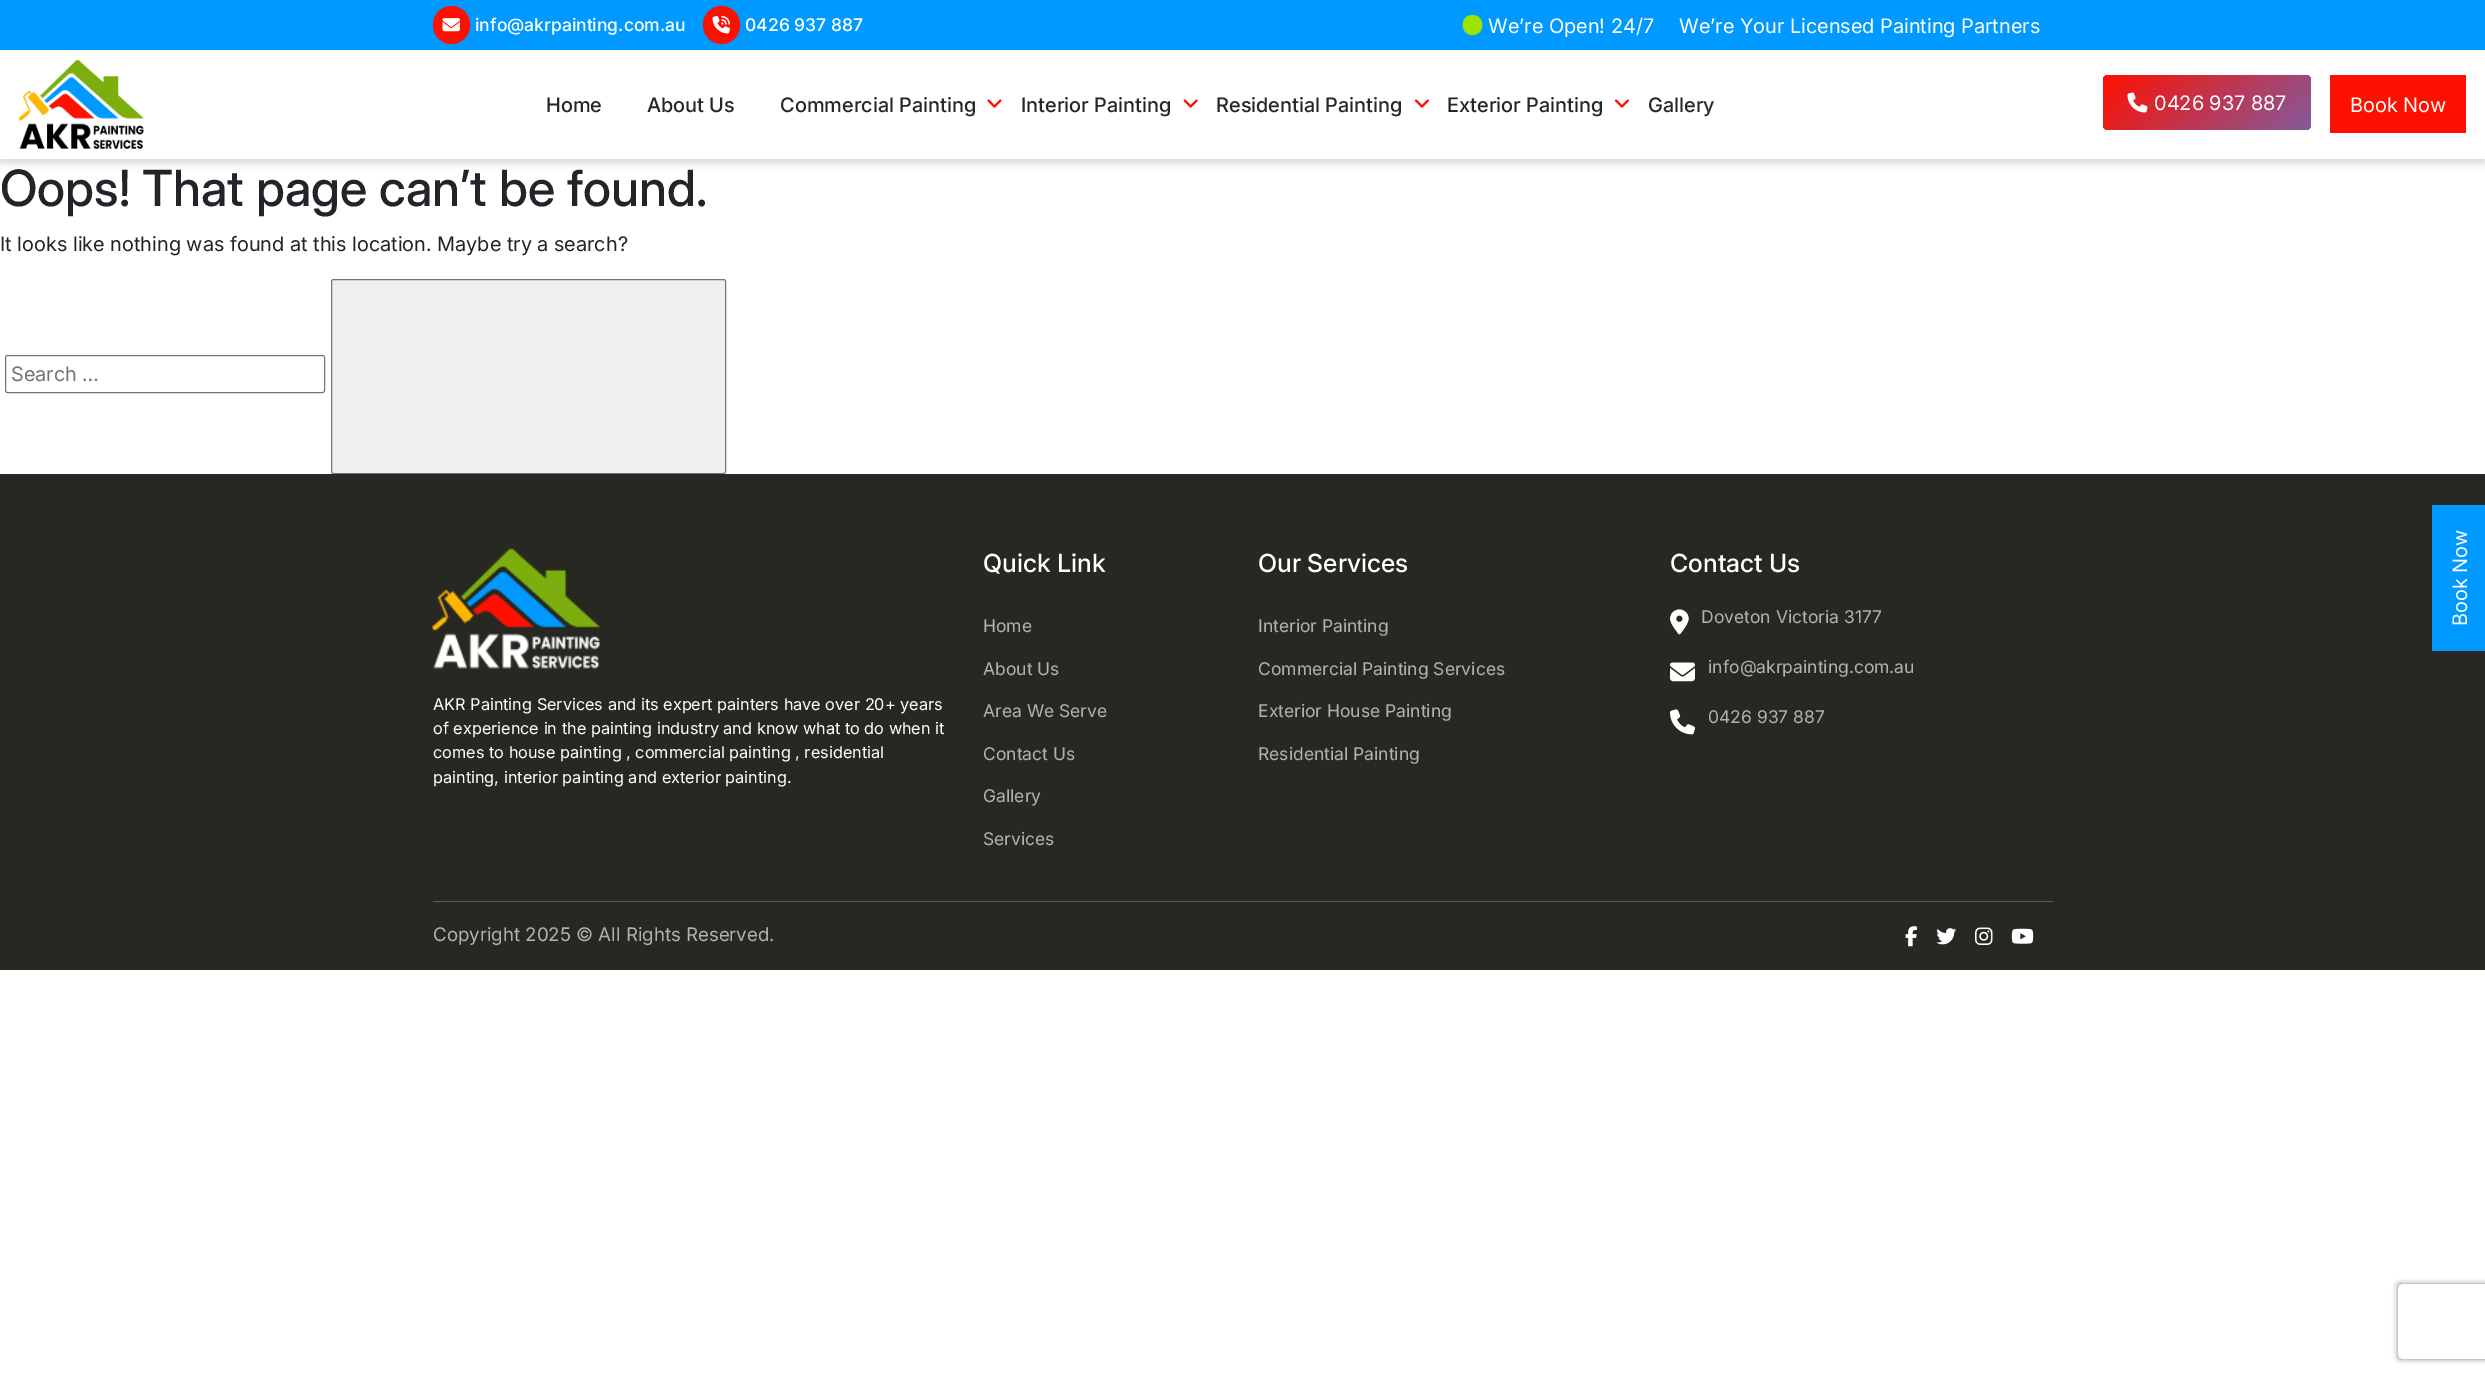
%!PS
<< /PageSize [2485 1376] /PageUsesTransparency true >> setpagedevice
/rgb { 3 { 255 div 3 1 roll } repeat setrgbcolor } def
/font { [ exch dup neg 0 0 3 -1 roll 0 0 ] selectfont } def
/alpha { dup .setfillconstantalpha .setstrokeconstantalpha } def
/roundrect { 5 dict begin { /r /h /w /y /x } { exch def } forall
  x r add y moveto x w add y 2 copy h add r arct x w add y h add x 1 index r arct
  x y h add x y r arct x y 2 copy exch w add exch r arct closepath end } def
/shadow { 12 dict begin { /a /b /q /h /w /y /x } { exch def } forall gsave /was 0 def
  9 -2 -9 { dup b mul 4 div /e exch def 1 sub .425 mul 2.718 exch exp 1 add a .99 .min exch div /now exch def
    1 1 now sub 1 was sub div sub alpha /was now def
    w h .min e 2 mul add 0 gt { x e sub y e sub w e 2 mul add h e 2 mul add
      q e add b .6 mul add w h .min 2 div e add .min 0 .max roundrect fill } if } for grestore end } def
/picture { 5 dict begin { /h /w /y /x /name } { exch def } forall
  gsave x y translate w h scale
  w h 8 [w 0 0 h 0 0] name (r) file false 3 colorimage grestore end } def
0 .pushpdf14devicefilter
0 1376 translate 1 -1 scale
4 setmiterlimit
255 255 255 rgb
0 0 2485 1376 rectfill
gsave
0 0 moveto 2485 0 lineto 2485 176 lineto 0 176 lineto closepath 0 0 moveto 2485 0 lineto 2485 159 lineto 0 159 lineto closepath eoclip newpath
0 0 0 rgb
0 4 2485 159 0 4 0.16 shadow
grestore
0 153 255 rgb
0 0 2485 50 rectfill
254 16 1 rgb
433 6 37 38 18.5 roundrect fill
(img/1.rgb) 442 18 18 14 picture
703 6 37 38 18.5 roundrect fill
(img/2.rgb) 712 15 18 19 picture
156 227 0 rgb
1472.5 35 moveto 1485.5 35 1485.5 15 1472.5 15 curveto 1459.5 15 1459.5 35 1472.5 35 curveto closepath fill
(img/3.rgb) 18 60 126 89 picture
(img/4.rgb) 987 99 15 9 picture
(img/5.rgb) 1183 99 15 9 picture
(img/6.rgb) 1414 99 15 9 picture
(img/6.rgb) 1614 99 15 9 picture
gsave 2103 75 208 55 6 roundrect clip newpath
<< /ShadingType 2 /ColorSpace /DeviceRGB /Coords [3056 429 2402 -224] /Extend [true true] /Function << /FunctionType 3 /Domain [0 1] /Functions [<< /FunctionType 2 /Domain [0 1] /C0 [1 0.714 0] /C1 [0.486 0.682 0.051] /N 1 >> << /FunctionType 2 /Domain [0 1] /C0 [0.486 0.682 0.051] /C1 [0.2 0.541 1] /N 1 >> << /FunctionType 2 /Domain [0 1] /C0 [0.2 0.541 1] /C1 [1 0.063 0.004] /N 1 >>] /Bounds [0.33 0.67] /Encode [0 1 0 1 0 1] >> >> shfill grestore
(img/7.rgb) 2127 92 21 21 picture
254 16 1 rgb
2330 75 136 58 rectfill
118 118 118 rgb
5.5 355.5 319 37 2 roundrect stroke
239 239 239 rgb
331.5 279.5 394 194 2 roundrect gsave fill grestore
118 118 118 rgb
stroke
39 40 34 rgb
0 474 2485 496 rectfill
(img/8.rgb) 1670 609 19 26 picture
(img/9.rgb) 1670 662 25 20 picture
(img/10.rgb) 1670 709 25 26 picture
(img/11.rgb) 432 548 168 121 picture
90 90 90 rgb
433 901 1620 1 rectfill
(img/12.rgb) 1905 926 12 21 picture
(img/13.rgb) 1936 928 21 17 picture
(img/14.rgb) 1975 927 18 18 picture
(img/15.rgb) 2011 928 23 16 picture
0 153 255 rgb
2432 505 53 146 rectfill
gsave
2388 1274 moveto 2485 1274 lineto 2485 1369 lineto 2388 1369 lineto closepath 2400.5 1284 moveto 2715.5 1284 lineto 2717 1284 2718 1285 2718 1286.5 curveto 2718 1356.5 lineto 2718 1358 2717 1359 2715.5 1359 curveto 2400.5 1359 lineto 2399 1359 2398 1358 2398 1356.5 curveto 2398 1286.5 lineto 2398 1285 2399 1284 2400.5 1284 curveto closepath eoclip newpath
128 128 128 rgb
2398 1284 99 75 2.5 3 1 shadow
grestore
/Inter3-Medium 17.5 font
255 255 255 rgb
475 31 moveto (info@akrpainting.com.au) show
745 31 moveto (0426 937 887) show
/Inter-Regular 20 font
1488 33 moveto (We’re Open! 24/7) show
1679 33 moveto (We’re Your Licensed Painting Partners) show
/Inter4-Medium 20 font
39 40 34 rgb
[
  [(Home) 546 112]
  [(About Us) 647 112]
  [(Commercial Painting) 780 112]
  [(Interior Painting) 1021 112]
  [(Residential Painting) 1216 112]
  [(Exterior Painting) 1447 112]
  [(Gallery) 1648 112]
] { aload pop moveto show } forall
/Inter-Regular 20 font
255 255 255 rgb
2154 110 moveto (0426 937 887) show
2350 112 moveto (Book Now) show
/Inter-Medium 50 font
33 37 41 rgb
0 206 moveto (Oops! That page can’t be found.) show
/Inter-Regular 20 font
0 251 moveto (It looks like nothing was found at this location. Maybe try a search?) show
117 117 117 rgb
11 381 moveto (Search …) show
/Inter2-Medium 25 font
255 255 255 rgb
983 572 moveto (Quick Link) show
/Inter2-Regular 17.5 font
177 177 177 rgb
[
  [(Home) 983 632]
  [(About Us) 983 675]
  [(Area We Serve) 983 717]
  [(Contact Us) 983 760]
  [(Gallery) 983 802]
  [(Services) 983 845]
] { aload pop moveto show } forall
/Inter2-Medium 25 font
255 255 255 rgb
1258 572 moveto (Our Services) show
/Inter2-Regular 17.5 font
177 177 177 rgb
[
  [(Interior Painting) 1258 632]
  [(Commercial Painting Services) 1258 675]
  [(Exterior House Painting) 1258 717]
  [(Residential Painting) 1258 760]
] { aload pop moveto show } forall
/Inter2-Medium 25 font
255 255 255 rgb
1670 572 moveto (Contact Us) show
/Inter2-Regular 17.5 font
177 177 177 rgb
[
  [(Doveton Victoria 3177) 1701 623]
  [(info@akrpainting.com.au) 1708 673]
  [(0426 937 887) 1708 723]
] { aload pop moveto show } forall
/Inter2-Regular 16.25 font
255 255 255 rgb
[
  [(AKR Painting Services and its expert painters have over 20+ years) 433 710]
  [(of experience in the painting industry and know what to do when it) 433 734]
  [(comes to house painting , commercial painting , residential) 433 758]
  [(painting, interior painting and exterior painting.) 433 783]
] { aload pop moveto show } forall
/Inter3-Regular 18.75 font
177 177 177 rgb
433 941 moveto (Copyright 2025 © All Rights Reserved.) show
/Inter-Regular 20 font
255 255 255 rgb
gsave 2467 626 translate -90 rotate 0 0 moveto (Book Now) show grestore
.poppdf14devicefilter showpage
